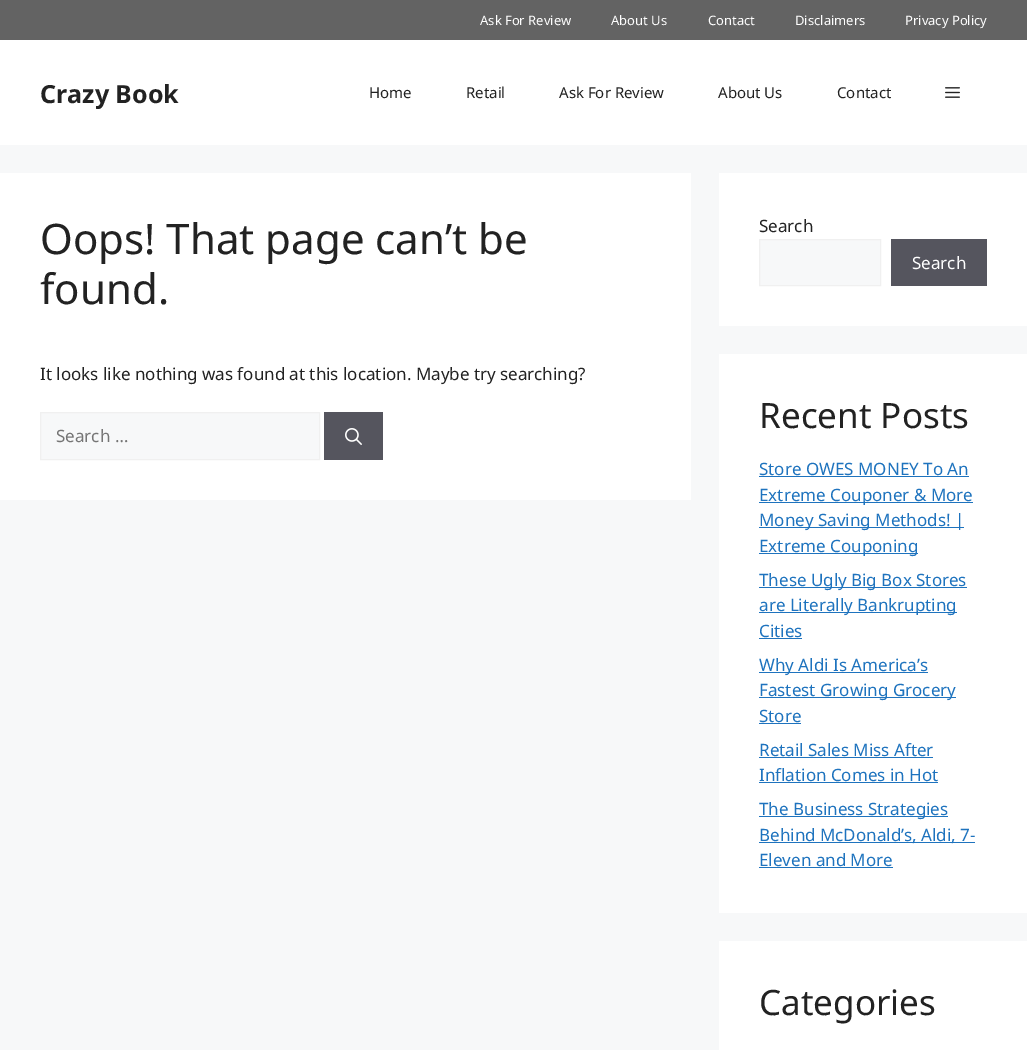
%!PS
<< /PageSize [1027 1050] >> setpagedevice
/rgb { 3 { 255 div 3 1 roll } repeat setrgbcolor } def
/font { [ exch dup neg 0 0 3 -1 roll 0 0 ] selectfont } def
/picture { 5 dict begin { /h /w /y /x /name } { exch def } forall
  gsave x y translate w h scale
  w h 8 [w 0 0 h 0 0] name (r) file false 3 colorimage grestore end } def
0 1050 translate 1 -1 scale
4 setmiterlimit
247 248 249 rgb
0 0 1027 1050 rectfill
99 99 99 rgb
0 0 1027 40 rectfill
255 255 255 rgb
0 40 1027 105 rectfill
(img/1.rgb) 945 87 15 11 picture
0 173 691 327 rectfill
247 248 249 rgb
40.5 412.5 moveto 319.5 412.5 lineto 319.5 459.5 lineto 40.5 459.5 lineto closepath gsave fill grestore
240 240 240 rgb
stroke
85 85 94 rgb
324 412 59 48 rectfill
(img/2.rgb) 345 428 17 17 picture
255 255 255 rgb
719 173 308 153 rectfill
247 248 249 rgb
759.5 239.5 moveto 880.5 239.5 lineto 880.5 285.5 lineto 759.5 285.5 lineto closepath gsave fill grestore
240 240 240 rgb
stroke
[
  [891 239 96 47 85 85 94]
  [719 354 308 559 255 255 255]
  [759 476 210 1 30 115 190]
  [759 502 214 1 30 115 190]
  [759 527 205 1 30 115 190]
  [759 553 159 1 30 115 190]
  [759 587 208 1 30 115 190]
  [759 612 198 1 30 115 190]
  [759 638 43 1 30 115 190]
  [759 672 169 1 30 115 190]
  [759 697 197 1 30 115 190]
  [759 723 42 1 30 115 190]
  [759 757 174 1 30 115 190]
  [759 782 179 1 30 115 190]
  [759 816 189 1 30 115 190]
  [759 842 216 1 30 115 190]
  [759 867 134 1 30 115 190]
  [719 941 308 109 255 255 255]
] { aload pop rgb rectfill } forall
/NotoSans-Regular 13 font
[
  [(Ask For Review) 480 25]
  [(About Us) 611 25]
  [(Contact) 708 25]
  [(Disclaimers) 795 25]
  [(Privacy Policy) 905 25]
] { aload pop moveto show } forall
/NotoSans-Bold 25 font
34 34 34 rgb
40 103 moveto (Crazy Book) show
/NotoSans-Regular 15 font
[
  [(Home) 369 98]
  [(Retail) 466 98]
  [(Ask For Review) 559 98]
  [(About Us) 718 98]
  [(Contact) 837 98]
] { aload pop moveto show } forall
/NotoSans-Regular 42 font
40 254 moveto (Oops! That page can’t be) show
40 304 moveto (found.) show
/NotoSans-Regular 17 font
40 380 moveto (It looks like nothing was found at this location. Maybe try searching?) show
117 117 117 rgb
56 442 moveto (Search …) show
34 34 34 rgb
759 232 moveto (Search) show
255 255 255 rgb
912 269 moveto (Search) show
/NotoSans-Regular 35 font
34 34 34 rgb
759 428 moveto (Recent Posts) show
/NotoSans-Regular 17 font
30 115 190 rgb
[
  [(Store OWES MONEY To An) 759 475]
  [(Extreme Couponer & More) 759 501]
  [(Money Saving Methods! |) 759 526]
  [(Extreme Couponing) 759 552]
  [(These Ugly Big Box Stores) 759 586]
  [(are Literally Bankrupting) 759 611]
  [(Cities) 759 637]
  [(Why Aldi Is America’s) 759 671]
  [(Fastest Growing Grocery) 759 696]
  [(Store) 759 722]
  [(Retail Sales Miss After) 759 756]
  [(Inflation Comes in Hot) 759 781]
  [(The Business Strategies) 759 815]
  [(Behind McDonald’s, Aldi, 7-) 759 841]
  [(Eleven and More) 759 866]
] { aload pop moveto show } forall
/NotoSans-Regular 35 font
34 34 34 rgb
759 1015 moveto (Categories) show
showpage
